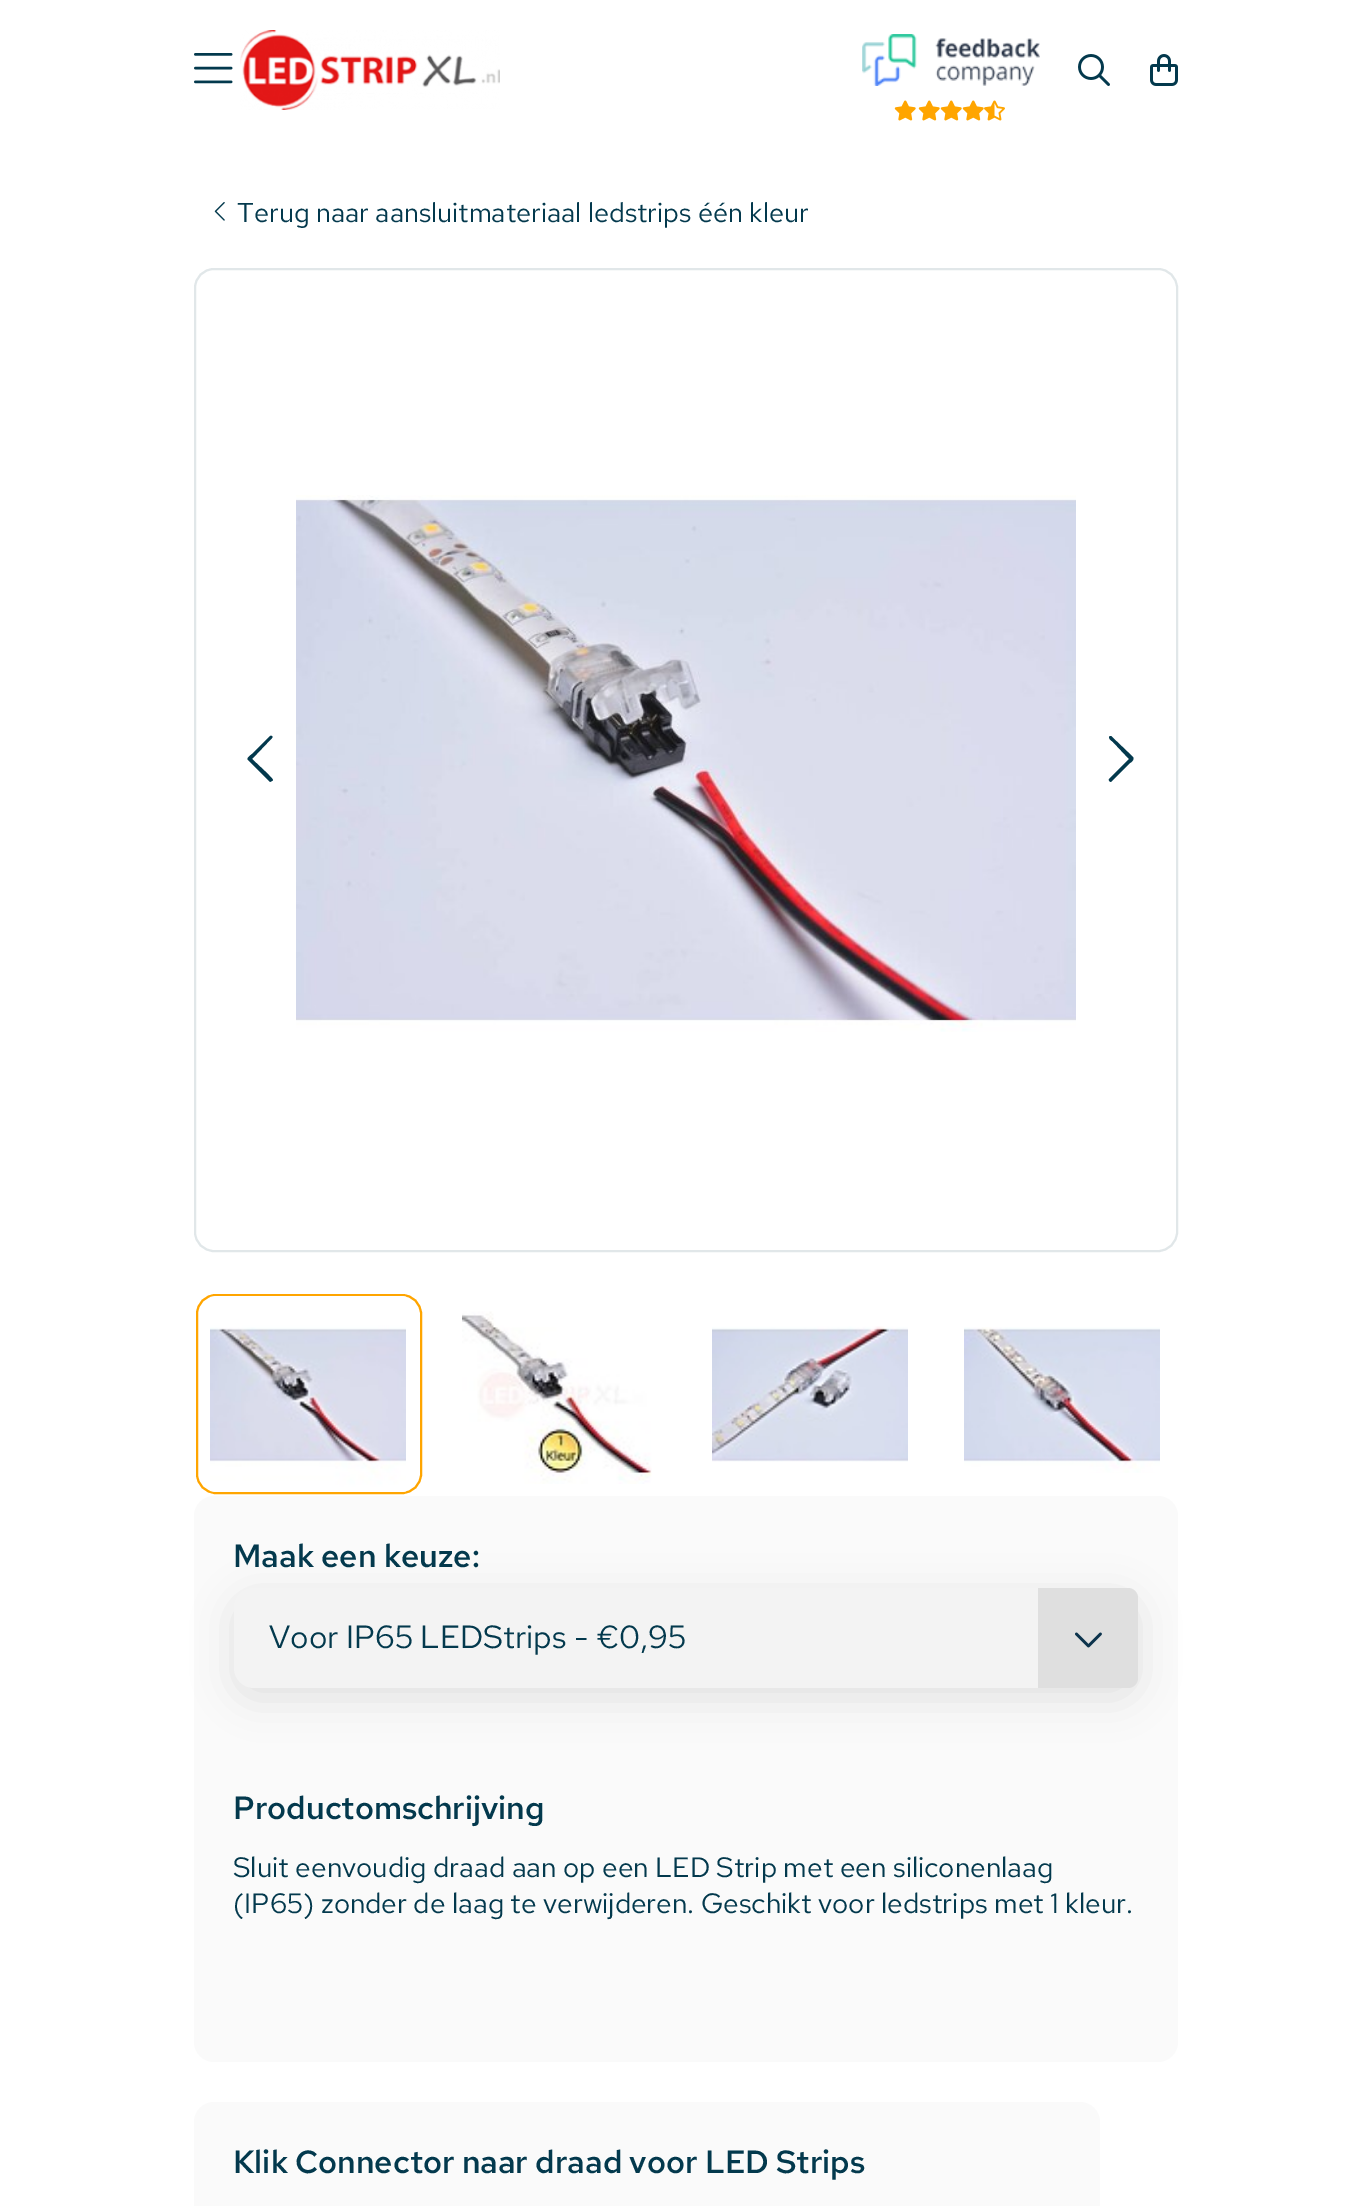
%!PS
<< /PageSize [1369 2206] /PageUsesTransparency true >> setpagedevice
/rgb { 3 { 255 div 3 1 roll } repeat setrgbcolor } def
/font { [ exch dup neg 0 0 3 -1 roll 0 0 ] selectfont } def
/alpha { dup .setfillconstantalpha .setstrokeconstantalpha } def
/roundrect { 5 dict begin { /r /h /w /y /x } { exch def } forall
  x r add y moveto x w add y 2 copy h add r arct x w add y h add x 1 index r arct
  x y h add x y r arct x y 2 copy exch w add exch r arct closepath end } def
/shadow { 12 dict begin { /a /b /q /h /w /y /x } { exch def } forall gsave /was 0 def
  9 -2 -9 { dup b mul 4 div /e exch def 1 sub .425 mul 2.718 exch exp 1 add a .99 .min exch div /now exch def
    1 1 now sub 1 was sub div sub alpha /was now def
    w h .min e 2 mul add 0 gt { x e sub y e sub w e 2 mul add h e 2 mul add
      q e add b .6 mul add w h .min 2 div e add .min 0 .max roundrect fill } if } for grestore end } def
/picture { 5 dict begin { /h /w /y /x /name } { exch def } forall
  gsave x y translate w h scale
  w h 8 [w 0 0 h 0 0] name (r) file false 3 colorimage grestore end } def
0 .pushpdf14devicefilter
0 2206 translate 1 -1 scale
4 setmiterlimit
255 255 255 rgb
0 0 1369 2206 rectfill
(img/1.rgb) 194 53 39 31 picture
(img/2.rgb) 240 30 260 80 picture
(img/3.rgb) 862 34 178 52 picture
(img/4.rgb) 894 100 22 21 picture
(img/4.rgb) 918 100 22 21 picture
(img/4.rgb) 940 100 22 21 picture
(img/4.rgb) 962 100 22 21 picture
(img/5.rgb) 984 100 21 21 picture
(img/6.rgb) 1078 54 32 32 picture
(img/7.rgb) 1150 54 28 32 picture
(img/8.rgb) 214 202 11 19 picture
225 231 233 rgb
2 setlinewidth
195 269 982 982 19 roundrect stroke
3 57 77 rgb
248 760 moveto 246 758 251 755 252 754 curveto 270 736 lineto 272 735 273 737 272 738 curveto 252 759 lineto 269 775 lineto 269 776 275 780 272 781 curveto 270 782 lineto closepath fill
(img/9.rgb) 296 495 780 537 picture
1133 757 moveto 1135 760 1130 763 1130 763 curveto 1111 782 lineto 1110 782 1108 780 1109 779 curveto 1129 759 lineto 1113 742 lineto 1112 741 1107 738 1110 736 curveto 1111 736 lineto closepath fill
255 165 0 rgb
197 1295 224 198 19 roundrect stroke
(img/10.rgb) 210 1296 196 196 picture
(img/11.rgb) 462 1311 190 173 picture
(img/12.rgb) 712 1326 196 136 picture
(img/13.rgb) 964 1327 196 146 picture
250 250 250 rgb
194 1496 984 566 20 roundrect fill
0 0 0 rgb
234 1598 904 100 20 20 0.1 shadow
243 243 243 rgb
234 1588 904 100 20 roundrect fill
223 223 223 rgb
1038 1588 moveto 1128 1588 lineto 1133.5 1588 1138 1592.5 1138 1598 curveto 1138 1678 lineto 1138 1683.5 1133.5 1688 1128 1688 curveto 1038 1688 lineto closepath fill
(img/14.rgb) 1075 1632 27 16 picture
250 250 250 rgb
194 2102 906 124 20 roundrect fill
/RedHatText-Regular 27.2 font
3 57 77 rgb
237 222 moveto (Terug naar aansluitmateriaal ledstrips één kleur) show
/RedHatText-SemiBold 32 font
233 1567 moveto (Maak een keuze:) show
/RedHatText-Regular 32 font
269 1648 moveto (Voor IP65 LEDStrips - €0,95) show
/RedHatText-SemiBold 32 font
233 1819 moveto (Productomschrijving) show
/RedHatText-Regular 28 font
233 1877 moveto (Sluit eenvoudig draad aan op een LED Strip met een siliconenlaag) show
233 1913 moveto (\(IP65\) zonder de laag te verwijderen. Geschikt voor ledstrips met 1 kleur.) show
/RedHatText-SemiBold 32 font
233 2173 moveto (Klik Connector naar draad voor LED Strips) show
.poppdf14devicefilter showpage
